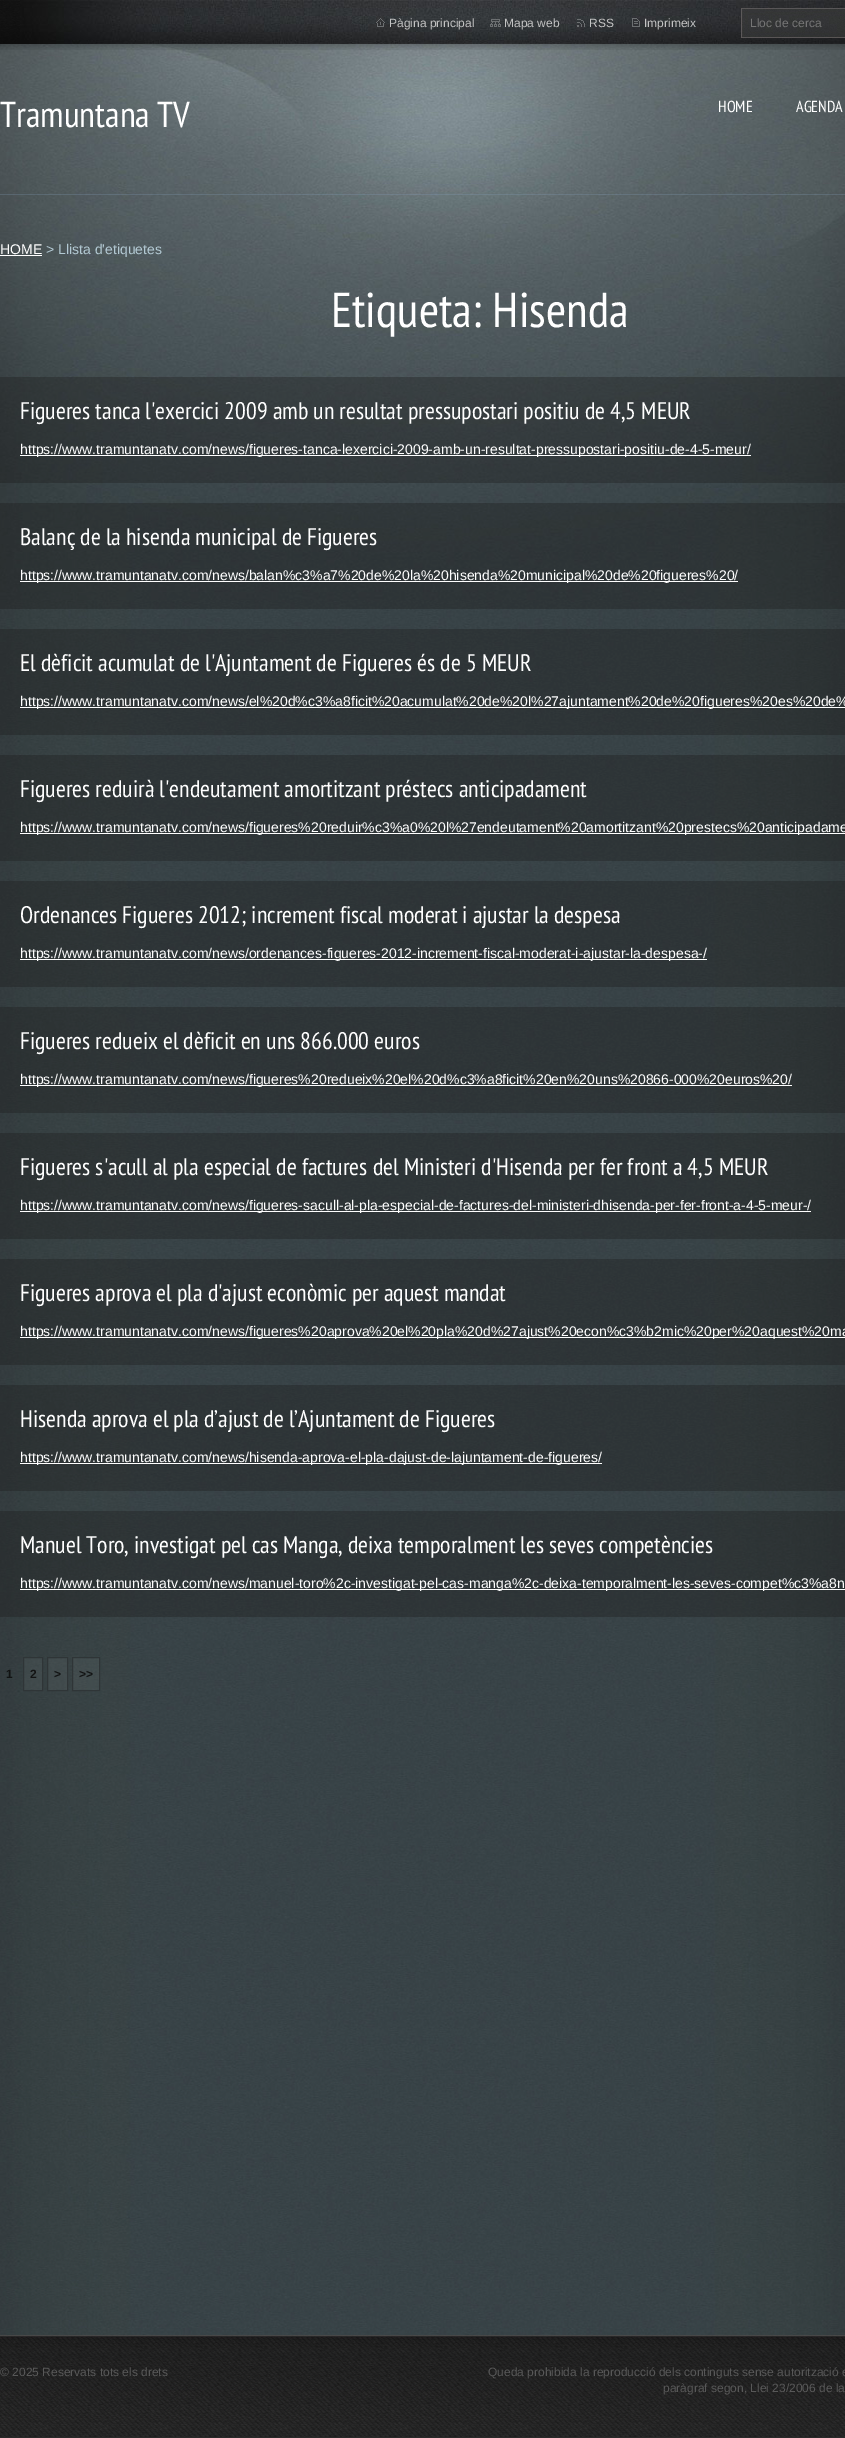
%!PS
<< /PageSize [845 2438] /PageUsesTransparency true >> setpagedevice
/rgb { 3 { 255 div 3 1 roll } repeat setrgbcolor } def
/font { [ exch dup neg 0 0 3 -1 roll 0 0 ] selectfont } def
/alpha { dup .setfillconstantalpha .setstrokeconstantalpha } def
/picture { 5 dict begin { /h /w /y /x /name } { exch def } forall
  gsave x y translate w h scale
  w h 8 [w 0 0 h 0 0] name (r) file false 3 colorimage grestore end } def
0 .pushpdf14devicefilter
0 2438 translate 1 -1 scale
4 setmiterlimit
255 255 255 rgb
0 0 845 2438 rectfill
(img/1.rgb) 0 600 845 1735 picture
(img/2.rgb) 0 44 845 556 picture
0.26 alpha
131 158 185 rgb
0 194 845 1 rectfill
1 alpha
(img/3.rgb) 0 0 845 50 picture
(img/4.rgb) 20 0 825 44 picture
(img/5.rgb) 376 18 9 9 picture
(img/6.rgb) 490 19 11 8 picture
(img/7.rgb) 577 19 8 8 picture
(img/8.rgb) 632 18 8 9 picture
(img/9.rgb) 741 8 104 30 picture
[
  [0 255 42 1 255 255 255]
] { aload pop rgb rectfill } forall
0.36 alpha
[
  [0 377 845 106 28 28 28]
] { aload pop rgb rectfill } forall
1 alpha
[
  [20 455 731 1 255 255 255]
] { aload pop rgb rectfill } forall
0.36 alpha
[
  [0 503 845 106 28 28 28]
] { aload pop rgb rectfill } forall
1 alpha
[
  [20 581 718 1 255 255 255]
] { aload pop rgb rectfill } forall
0.36 alpha
[
  [0 629 845 106 28 28 28]
] { aload pop rgb rectfill } forall
1 alpha
[
  [20 707 825 1 255 255 255]
] { aload pop rgb rectfill } forall
0.36 alpha
[
  [0 755 845 106 28 28 28]
] { aload pop rgb rectfill } forall
1 alpha
[
  [20 833 825 1 255 255 255]
] { aload pop rgb rectfill } forall
0.36 alpha
[
  [0 881 845 106 28 28 28]
] { aload pop rgb rectfill } forall
1 alpha
[
  [20 959 687 1 255 255 255]
] { aload pop rgb rectfill } forall
0.36 alpha
[
  [0 1007 845 106 28 28 28]
] { aload pop rgb rectfill } forall
1 alpha
[
  [20 1085 772 1 255 255 255]
] { aload pop rgb rectfill } forall
0.36 alpha
[
  [0 1133 845 106 28 28 28]
] { aload pop rgb rectfill } forall
1 alpha
[
  [20 1211 791 1 255 255 255]
] { aload pop rgb rectfill } forall
0.36 alpha
[
  [0 1259 845 106 28 28 28]
] { aload pop rgb rectfill } forall
1 alpha
[
  [20 1337 825 1 255 255 255]
] { aload pop rgb rectfill } forall
0.36 alpha
[
  [0 1385 845 106 28 28 28]
] { aload pop rgb rectfill } forall
1 alpha
[
  [20 1463 582 1 255 255 255]
] { aload pop rgb rectfill } forall
0.36 alpha
[
  [0 1511 845 106 28 28 28]
] { aload pop rgb rectfill } forall
1 alpha
[
  [20 1589 825 1 255 255 255]
] { aload pop rgb rectfill } forall
0.05 alpha
23.5 1657.5 moveto 42.5 1657.5 lineto 42.5 1690.5 lineto 23.5 1690.5 lineto closepath fill
1 alpha
47 53 55 rgb
23.5 1657.5 moveto 42.5 1657.5 lineto 42.5 1690.5 lineto 23.5 1690.5 lineto closepath stroke
0.05 alpha
255 255 255 rgb
47.5 1657.5 moveto 67.5 1657.5 lineto 67.5 1690.5 lineto 47.5 1690.5 lineto closepath fill
1 alpha
47 53 55 rgb
47.5 1657.5 moveto 67.5 1657.5 lineto 67.5 1690.5 lineto 47.5 1690.5 lineto closepath stroke
0.05 alpha
255 255 255 rgb
72.5 1657.5 moveto 99.5 1657.5 lineto 99.5 1690.5 lineto 72.5 1690.5 lineto closepath fill
1 alpha
47 53 55 rgb
72.5 1657.5 moveto 99.5 1657.5 lineto 99.5 1690.5 lineto 72.5 1690.5 lineto closepath stroke
42 42 42 rgb
0 2437 845 1 rectfill
(img/10.rgb) 0 2335 845 102 picture
/LiberationSans-Regular 12 font
195 195 195 rgb
[
  [(Pàgina principal) 389 27]
  [(Mapa web) 504 27]
  [(RSS) 589 27]
  [(Imprimeix) 644 27]
] { aload pop moveto show } forall
117 117 117 rgb
750 27 moveto (Lloc de cerca) show
/PTSansNarrow-Regular 36 font
255 255 255 rgb
0 127 moveto (Tramuntana TV) show
/PTSansNarrow-Regular 16 font
718 112 moveto (HOME) show
796 112 moveto (AGENDA) show
/LiberationSans-Regular 14 font
0 254 moveto (HOME) show
179 201 211 rgb
46 254 moveto (> Llista d'etiquetes) show
/PTSansNarrow-Regular 49 font
255 255 255 rgb
331 327 moveto (Etiqueta: Hisenda) show
/PTSansNarrow-Regular 24 font
20 419 moveto (Figueres tanca l'exercici 2009 amb un resultat pressupostari positiu de 4,5 MEUR) show
/LiberationSans-Regular 14 font
20 454 moveto (https://www.tramuntanatv.com/news/figueres-tanca-lexercici-2009-amb-un-resultat-pressupostari-positiu-de-4-5-meur/) show
/PTSansNarrow-Regular 24 font
20 545 moveto (Balanç de la hisenda municipal de Figueres) show
/LiberationSans-Regular 14 font
20 580 moveto (https://www.tramuntanatv.com/news/balan%c3%a7%20de%20la%20hisenda%20municipal%20de%20figueres%20/) show
/PTSansNarrow-Regular 24 font
20 671 moveto (El dèficit acumulat de l'Ajuntament de Figueres és de 5 MEUR) show
/LiberationSans-Regular 14 font
20 706 moveto (https://www.tramuntanatv.com/news/el%20d%c3%a8ficit%20acumulat%20de%20l%27ajuntament%20de%20figueres%20es%20de%) show
/PTSansNarrow-Regular 24 font
20 797 moveto (Figueres reduirà l'endeutament amortitzant préstecs anticipadament) show
/LiberationSans-Regular 14 font
20 832 moveto (https://www.tramuntanatv.com/news/figueres%20reduir%c3%a0%20l%27endeutament%20amortitzant%20prestecs%20anticipadame) show
/PTSansNarrow-Regular 24 font
20 923 moveto (Ordenances Figueres 2012; increment fiscal moderat i ajustar la despesa) show
/LiberationSans-Regular 14 font
20 958 moveto (https://www.tramuntanatv.com/news/ordenances-figueres-2012-increment-fiscal-moderat-i-ajustar-la-despesa-/) show
/PTSansNarrow-Regular 24 font
20 1049 moveto (Figueres redueix el dèficit en uns 866.000 euros) show
/LiberationSans-Regular 14 font
20 1084 moveto (https://www.tramuntanatv.com/news/figueres%20redueix%20el%20d%c3%a8ficit%20en%20uns%20866-000%20euros%20/) show
/PTSansNarrow-Regular 24 font
20 1175 moveto (Figueres s'acull al pla especial de factures del Ministeri d'Hisenda per fer front a 4,5 MEUR) show
/LiberationSans-Regular 14 font
20 1210 moveto (https://www.tramuntanatv.com/news/figueres-sacull-al-pla-especial-de-factures-del-ministeri-dhisenda-per-fer-front-a-4-5-meur-/) show
/PTSansNarrow-Regular 24 font
20 1301 moveto (Figueres aprova el pla d'ajust econòmic per aquest mandat) show
/LiberationSans-Regular 14 font
20 1336 moveto (https://www.tramuntanatv.com/news/figueres%20aprova%20el%20pla%20d%27ajust%20econ%c3%b2mic%20per%20aquest%20ma) show
/PTSansNarrow-Regular 24 font
20 1427 moveto (Hisenda aprova el pla d’ajust de l’Ajuntament de Figueres) show
/LiberationSans-Regular 14 font
20 1462 moveto (https://www.tramuntanatv.com/news/hisenda-aprova-el-pla-dajust-de-lajuntament-de-figueres/) show
/PTSansNarrow-Regular 24 font
20 1553 moveto (Manuel Toro, investigat pel cas Manga, deixa temporalment les seves competències) show
/LiberationSans-Regular 14 font
20 1588 moveto (https://www.tramuntanatv.com/news/manuel-toro%2c-investigat-pel-cas-manga%2c-deixa-temporalment-les-seves-compet%c3%a8n) show
/LiberationSans-Bold 12 font
18 19 19 rgb
[
  [(1) 6 1678]
  [(2) 30 1678]
  [(>) 54 1678]
  [(>>) 79 1678]
] { aload pop moveto show } forall
/LiberationSans-Regular 12 font
88 88 88 rgb
[
  [(© 2025 Reservats tots els drets) 0 2376]
  [(Queda prohibida la reproducció dels continguts sense autorització e) 488 2376]
  [(paràgraf segon, Llei 23/2006 de la) 663 2392]
] { aload pop moveto show } forall
.poppdf14devicefilter showpage
